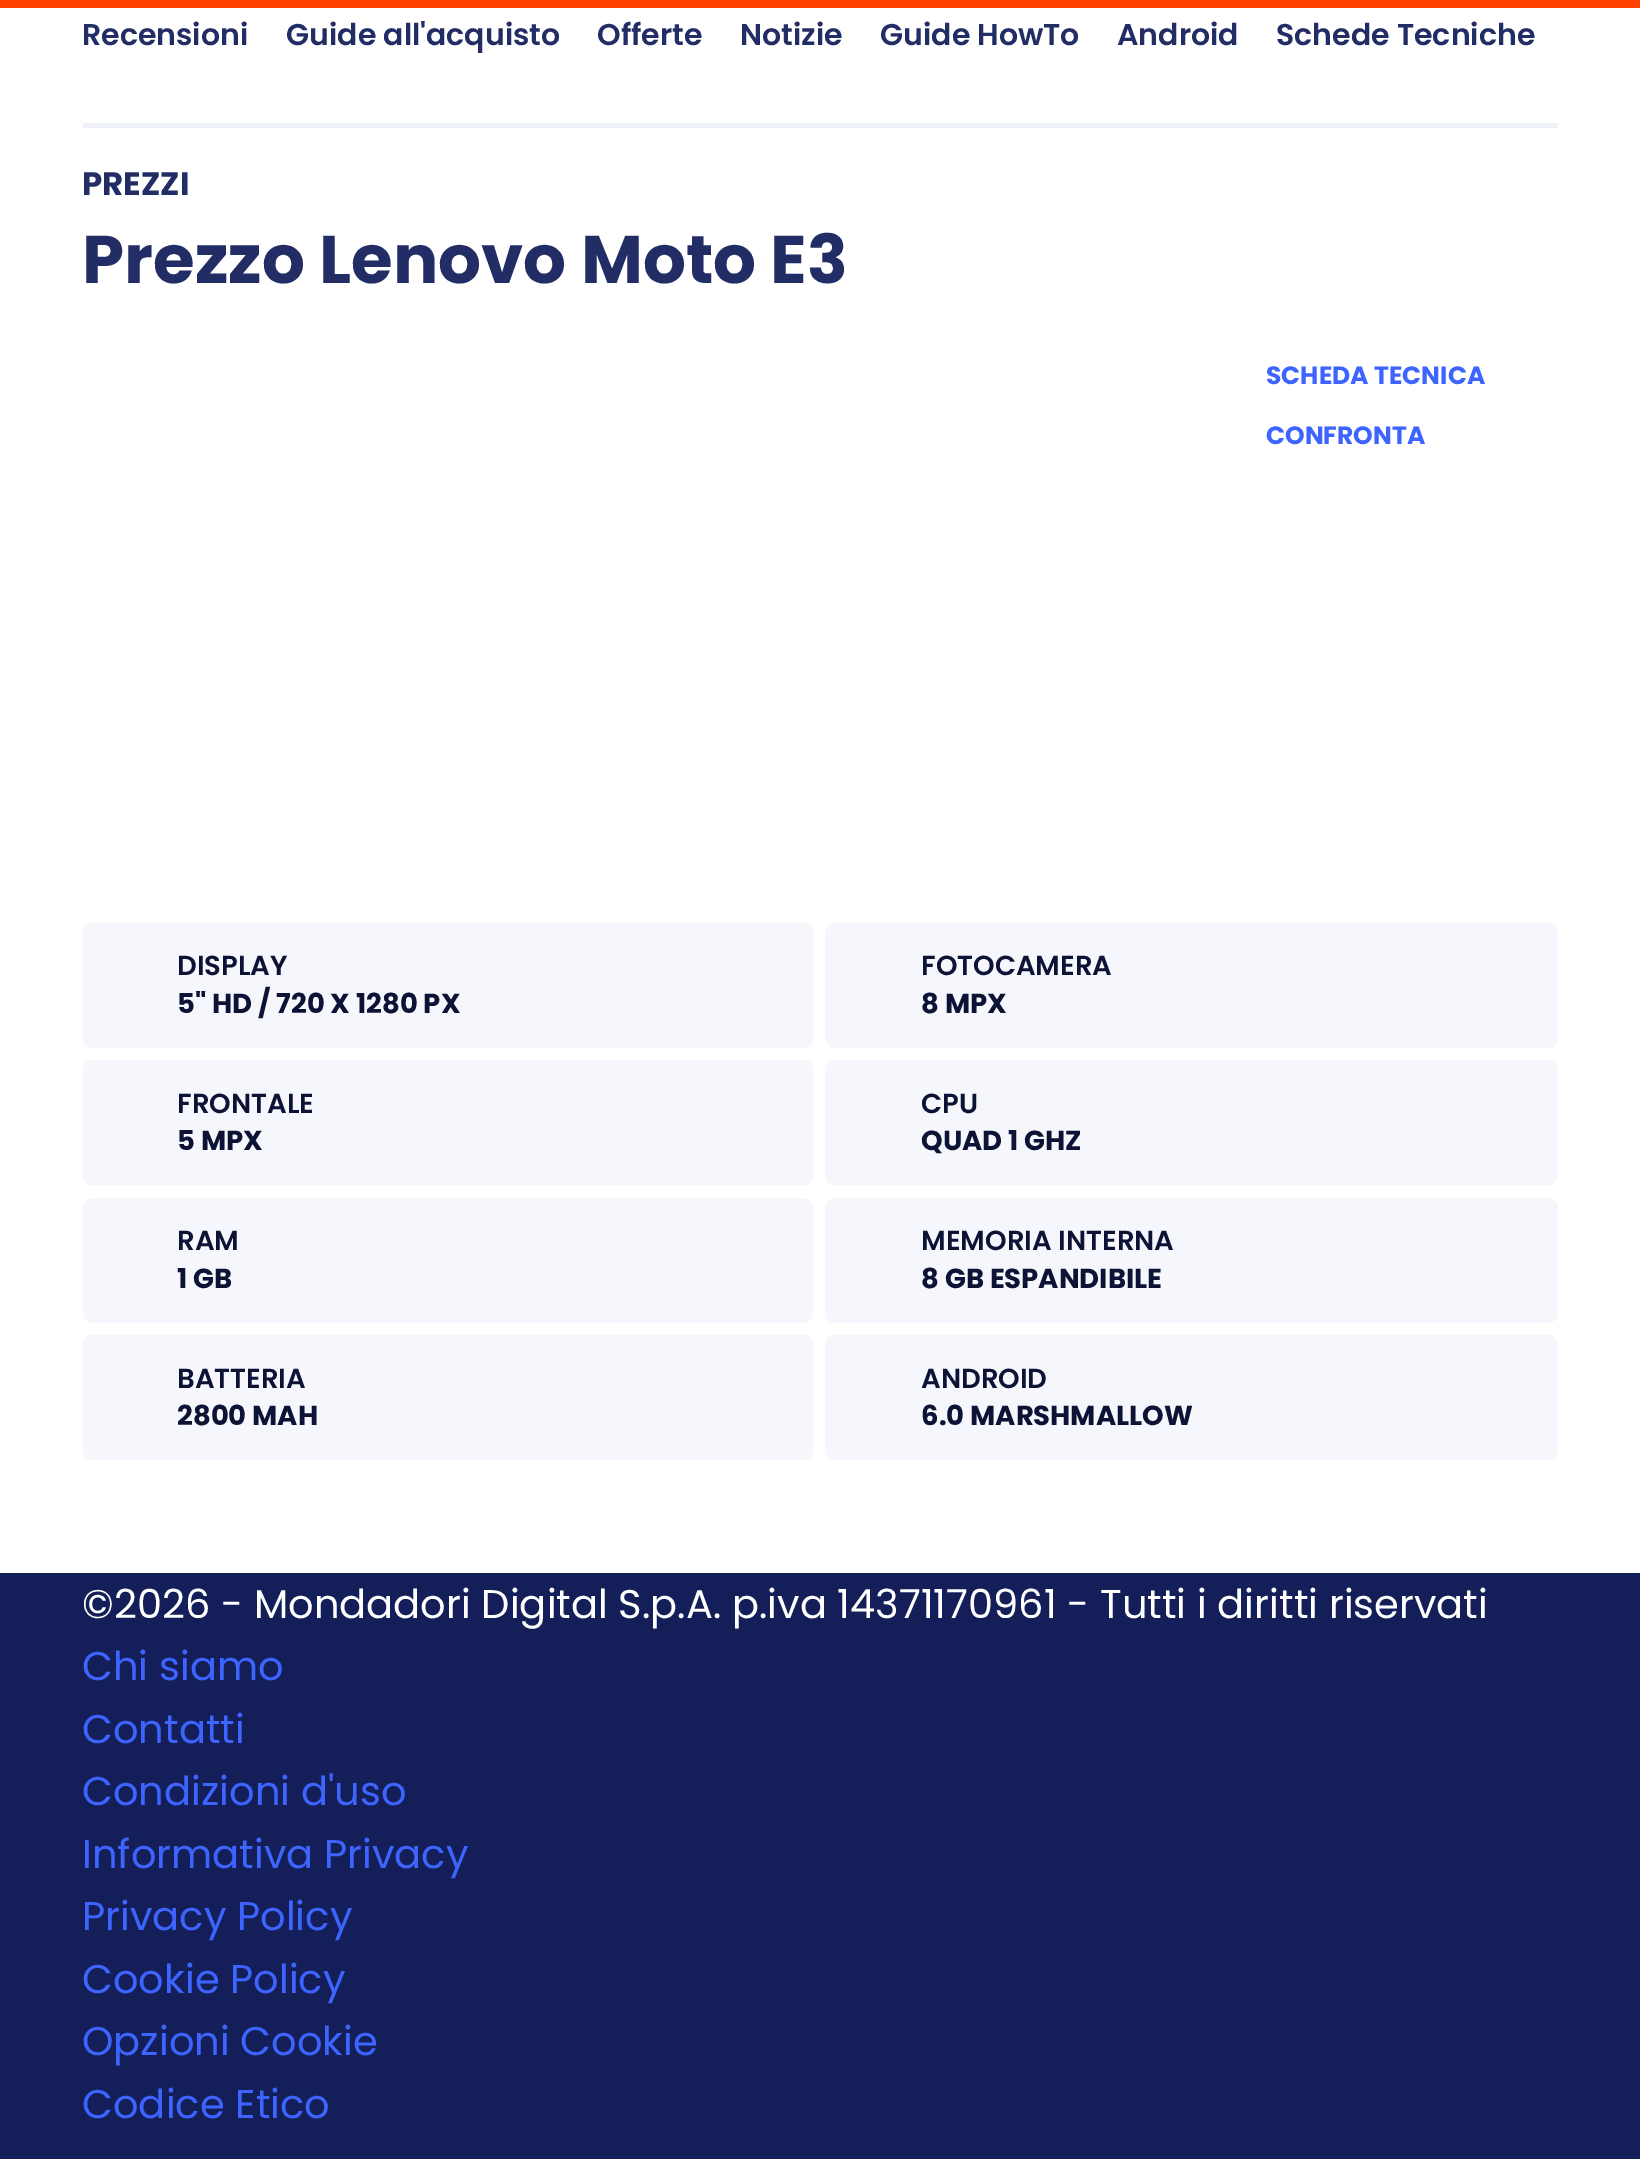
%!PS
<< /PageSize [1640 2159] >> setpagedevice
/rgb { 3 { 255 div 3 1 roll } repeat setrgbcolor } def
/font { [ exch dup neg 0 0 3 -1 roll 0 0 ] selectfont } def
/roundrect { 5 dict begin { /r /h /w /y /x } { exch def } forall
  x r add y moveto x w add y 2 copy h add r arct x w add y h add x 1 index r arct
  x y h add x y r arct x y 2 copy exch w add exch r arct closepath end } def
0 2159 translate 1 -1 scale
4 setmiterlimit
255 255 255 rgb
0 0 1640 2159 rectfill
255 66 0 rgb
0 0 1640 8 rectfill
239 241 249 rgb
83 123 1475 5 rectfill
246 247 252 rgb
83 923 730 125 10 roundrect fill
825 923 733 125 10 roundrect fill
83 1060 730 125 10 roundrect fill
825 1060 733 125 10 roundrect fill
83 1198 730 125 10 roundrect fill
825 1198 733 125 10 roundrect fill
83 1335 730 125 10 roundrect fill
825 1335 733 125 10 roundrect fill
20 31 89 rgb
0 1573 1640 586 rectfill
/Poppins-SemiBold 30 font
34 45 102 rgb
[
  [(Recensioni) 82 45]
  [(Guide all'acquisto) 286 45]
  [(Offerte) 597 45]
  [(Notizie) 740 45]
  [(Guide HowTo) 880 45]
  [(Android) 1117 45]
  [(Schede Tecniche) 1276 45]
] { aload pop moveto show } forall
/Poppins-Bold 32.5 font
82 195 moveto (PREZZI) show
/Poppins-Bold 67.5 font
82 283 moveto (Prezzo Lenovo Moto E3) show
/Poppins-Bold 25 font
61 100 255 rgb
1266 384 moveto (SCHEDA TECNICA) show
1266 444 moveto (CONFRONTA) show
/Poppins-SemiBold 27.5 font
12 19 53 rgb
177 975 moveto (DISPLAY) show
/Poppins-Bold 27.5 font
177 1013 moveto (5" HD / 720 X 1280 PX) show
/Poppins-SemiBold 27.5 font
921 975 moveto (FOTOCAMERA) show
/Poppins-Bold 27.5 font
921 1013 moveto (8 MPX) show
/Poppins-SemiBold 27.5 font
177 1113 moveto (FRONTALE) show
/Poppins-Bold 27.5 font
177 1150 moveto (5 MPX) show
/Poppins-SemiBold 27.5 font
921 1113 moveto (CPU) show
/Poppins-Bold 27.5 font
921 1150 moveto (QUAD 1 GHZ) show
/Poppins-SemiBold 27.5 font
177 1250 moveto (RAM) show
/Poppins-Bold 27.5 font
177 1288 moveto (1 GB) show
/Poppins-SemiBold 27.5 font
921 1250 moveto (MEMORIA INTERNA) show
/Poppins-Bold 27.5 font
921 1288 moveto (8 GB ESPANDIBILE) show
/Poppins-SemiBold 27.5 font
177 1388 moveto (BATTERIA) show
/Poppins-Bold 27.5 font
177 1425 moveto (2800 MAH) show
/Poppins-SemiBold 27.5 font
921 1388 moveto (ANDROID) show
/Poppins-Bold 27.5 font
921 1425 moveto (6.0 MARSHMALLOW) show
/Poppins-Regular 40 font
255 255 255 rgb
82 1618 moveto (©2026 - Mondadori Digital S.p.A. p.iva 14371170961 - Tutti i diritti riservati) show
61 100 255 rgb
[
  [(Chi siamo) 82 1680]
  [(Contatti) 82 1743]
  [(Condizioni d'uso) 82 1805]
  [(Informativa Privacy) 82 1868]
  [(Privacy Policy) 82 1930]
  [(Cookie Policy) 82 1993]
  [(Opzioni Cookie) 82 2055]
  [(Codice Etico) 82 2118]
] { aload pop moveto show } forall
showpage
